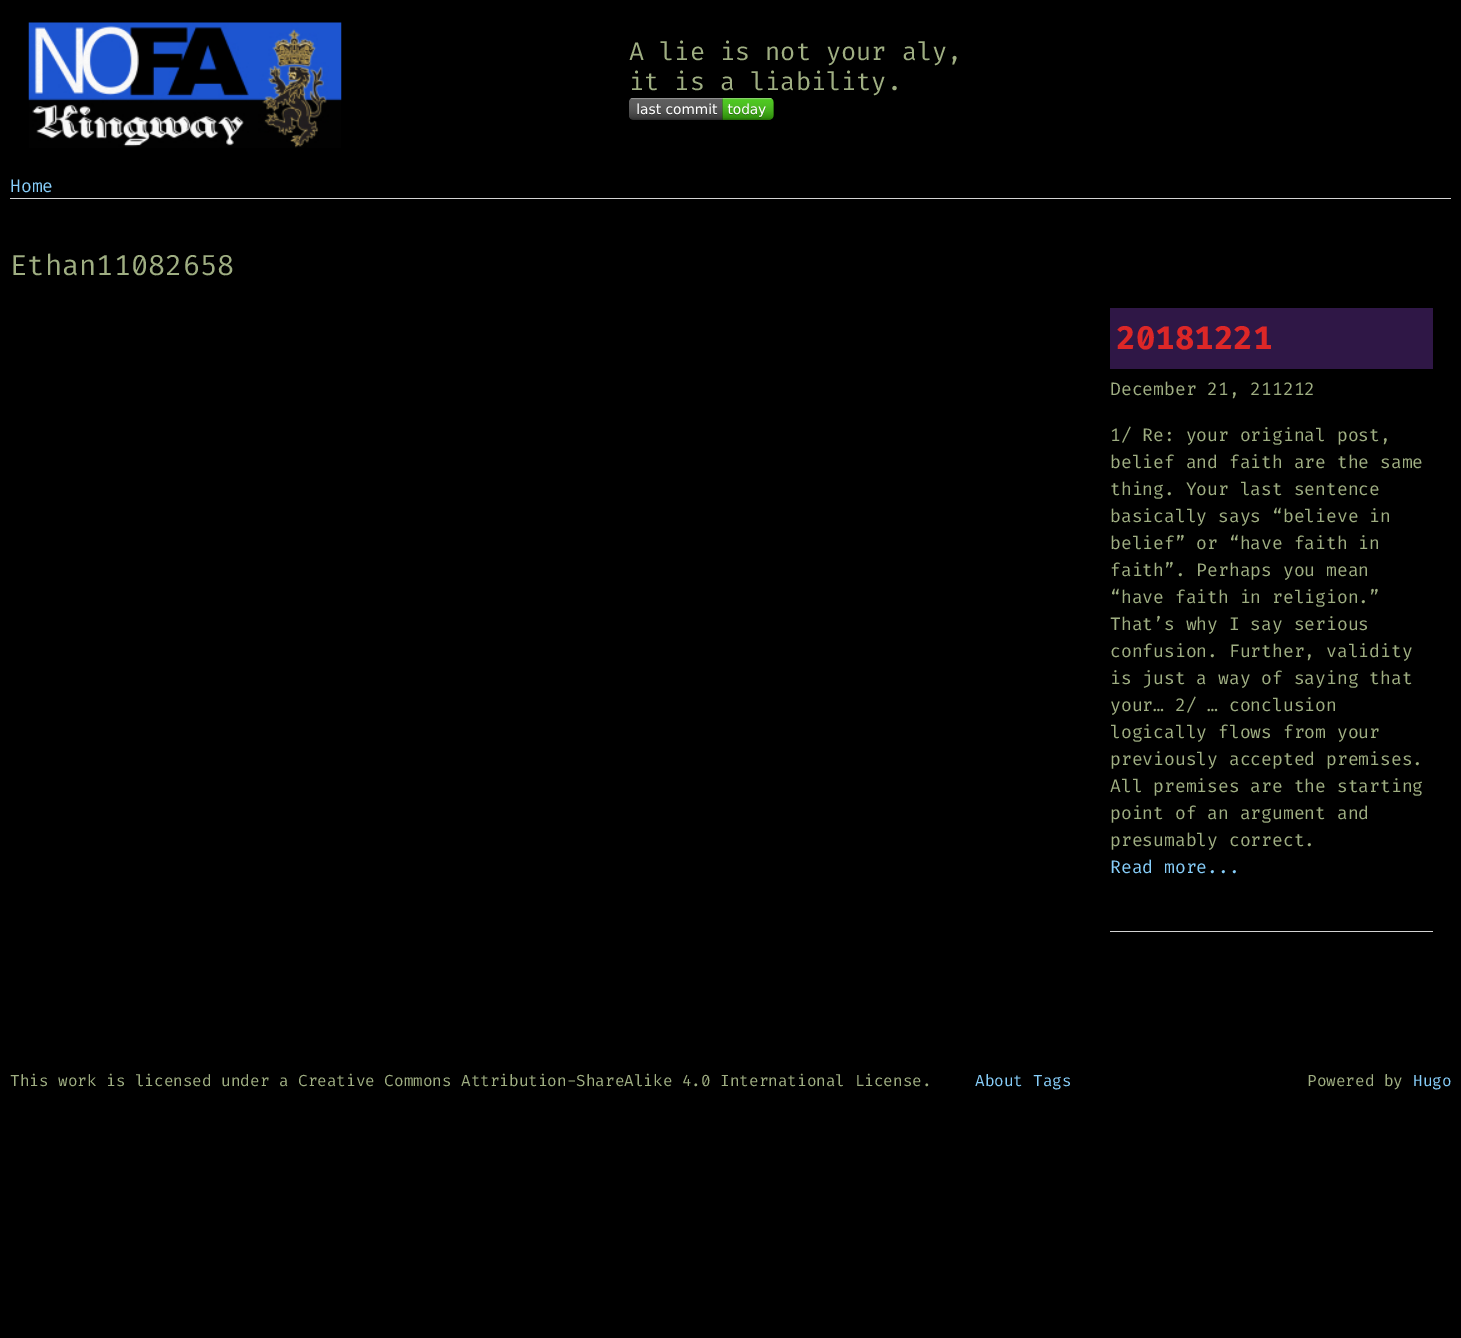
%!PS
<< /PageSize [1461 1338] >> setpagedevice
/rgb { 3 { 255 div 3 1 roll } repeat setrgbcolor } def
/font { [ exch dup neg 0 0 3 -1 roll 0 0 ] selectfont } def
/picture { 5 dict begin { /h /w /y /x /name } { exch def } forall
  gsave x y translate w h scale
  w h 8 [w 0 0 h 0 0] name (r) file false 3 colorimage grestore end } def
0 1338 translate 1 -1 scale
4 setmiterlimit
0 0 0 rgb
0 0 1461 1338 rectfill
(img/1.rgb) 28 22 314 126 picture
(img/2.rgb) 629 98 145 22 picture
[
  [10 198 1441 1 211 211 211]
  [1110 931 323 1 211 211 211]
  [1110 308 323 61 47 23 70]
] { aload pop rgb rectfill } forall
/FiraCode-Regular 25.25 font
159 174 130 rgb
629 60 moveto (A lie is not your aly,) show
629 90 moveto (it is a liability.) show
/FiraCode-Regular 18 font
135 206 250 rgb
10 192 moveto (Home) show
/FiraCode-Regular 28.75 font
159 174 130 rgb
10 275 moveto (Ethan11082658) show
/FiraCode-Bold 32.5 font
221 39 39 rgb
1116 349 moveto (20181221) show
/FiraCode-Regular 18 font
159 174 130 rgb
[
  [(December 21, 211212) 1110 395]
  [(1/ Re: your original post,) 1110 441]
  [(belief and faith are the same) 1110 468]
  [(thing. Your last sentence) 1110 495]
  [(basically says “believe in) 1110 522]
  [(belief” or “have faith in) 1110 549]
  [(faith”. Perhaps you mean) 1110 576]
  [(“have faith in religion.”) 1110 603]
  [(That’s why I say serious) 1110 630]
  [(confusion. Further, validity) 1110 657]
  [(is just a way of saying that) 1110 684]
  [(your… 2/ … conclusion) 1110 711]
  [(logically flows from your) 1110 738]
  [(previously accepted premises.) 1110 765]
  [(All premises are the starting) 1110 792]
  [(point of an argument and) 1110 819]
  [(presumably correct.) 1110 846]
] { aload pop moveto show } forall
135 206 250 rgb
1110 873 moveto (Read more...) show
/FiraCode-Regular 16 font
159 174 130 rgb
10 1086 moveto (This work is licensed under a Creative Commons Attribution-ShareAlike 4.0 International License.) show
135 206 250 rgb
975 1086 moveto (About) show
1033 1086 moveto (Tags) show
159 174 130 rgb
1307 1086 moveto (Powered by) show
135 206 250 rgb
1413 1086 moveto (Hugo) show
showpage
